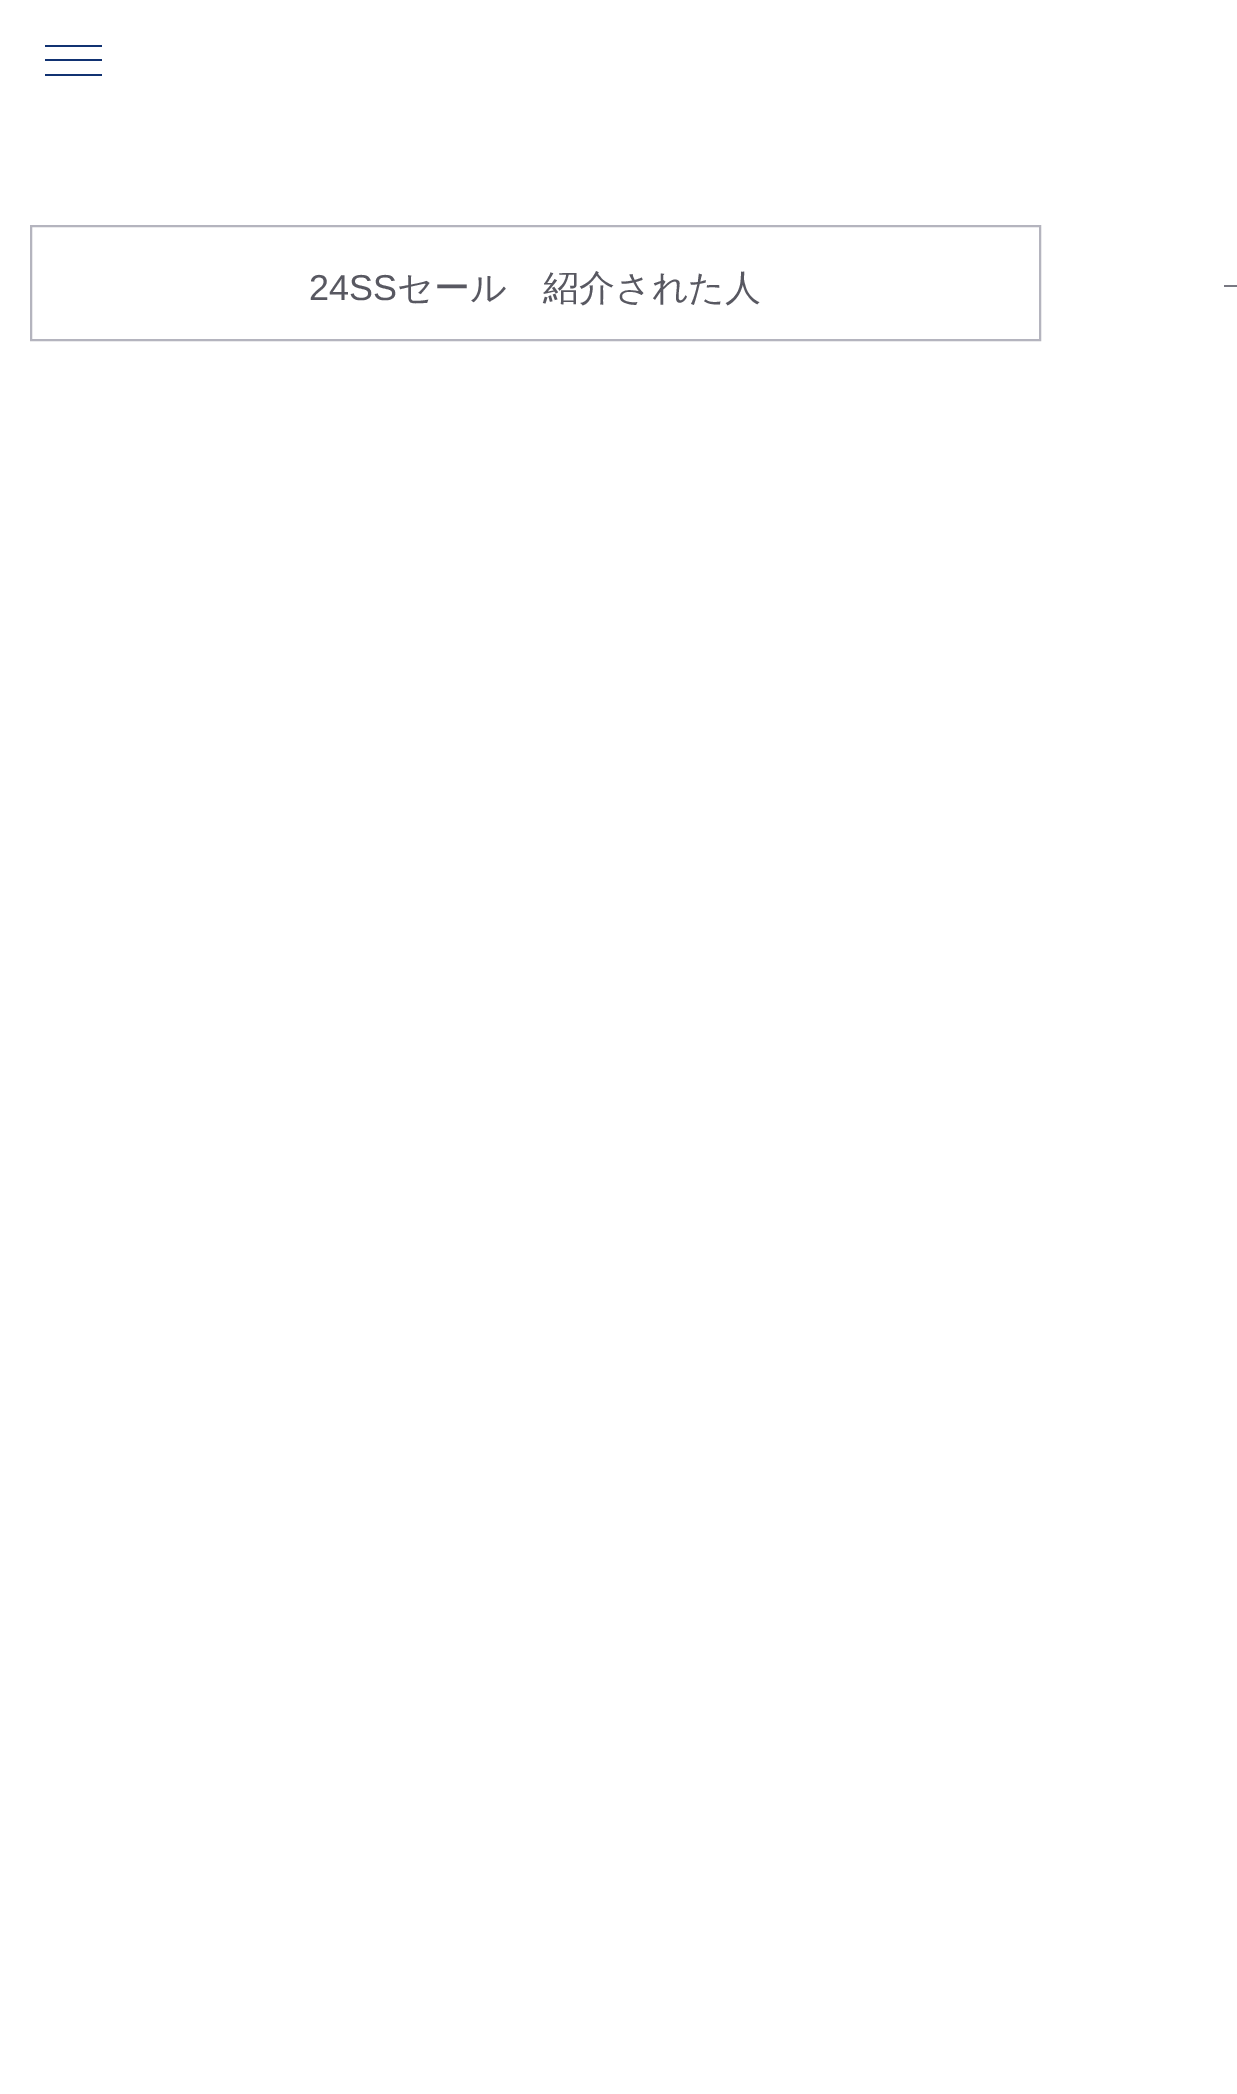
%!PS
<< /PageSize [1237 2094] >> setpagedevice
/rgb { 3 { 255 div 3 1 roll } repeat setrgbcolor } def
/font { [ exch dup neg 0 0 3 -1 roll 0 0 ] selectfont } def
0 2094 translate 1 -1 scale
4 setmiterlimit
255 255 255 rgb
0 0 1237 2094 rectfill
[
  [45 45 57 2 17 50 114]
  [45 59 57 2 17 50 114]
  [45 74 57 2 17 50 114]
] { aload pop rgb rectfill } forall
180 180 190 rgb
2 setlinewidth
31 226 1009 114 rectstroke
120 120 130 rgb
1224 285 13 2 rectfill
/LiberationSans-Regular 36 font
88 88 97 rgb
309 300 moveto (24SS) show
/WenQuanYiZenHei-Medium 36 font
397 300 moveto (セール　紹介された人) show
showpage
